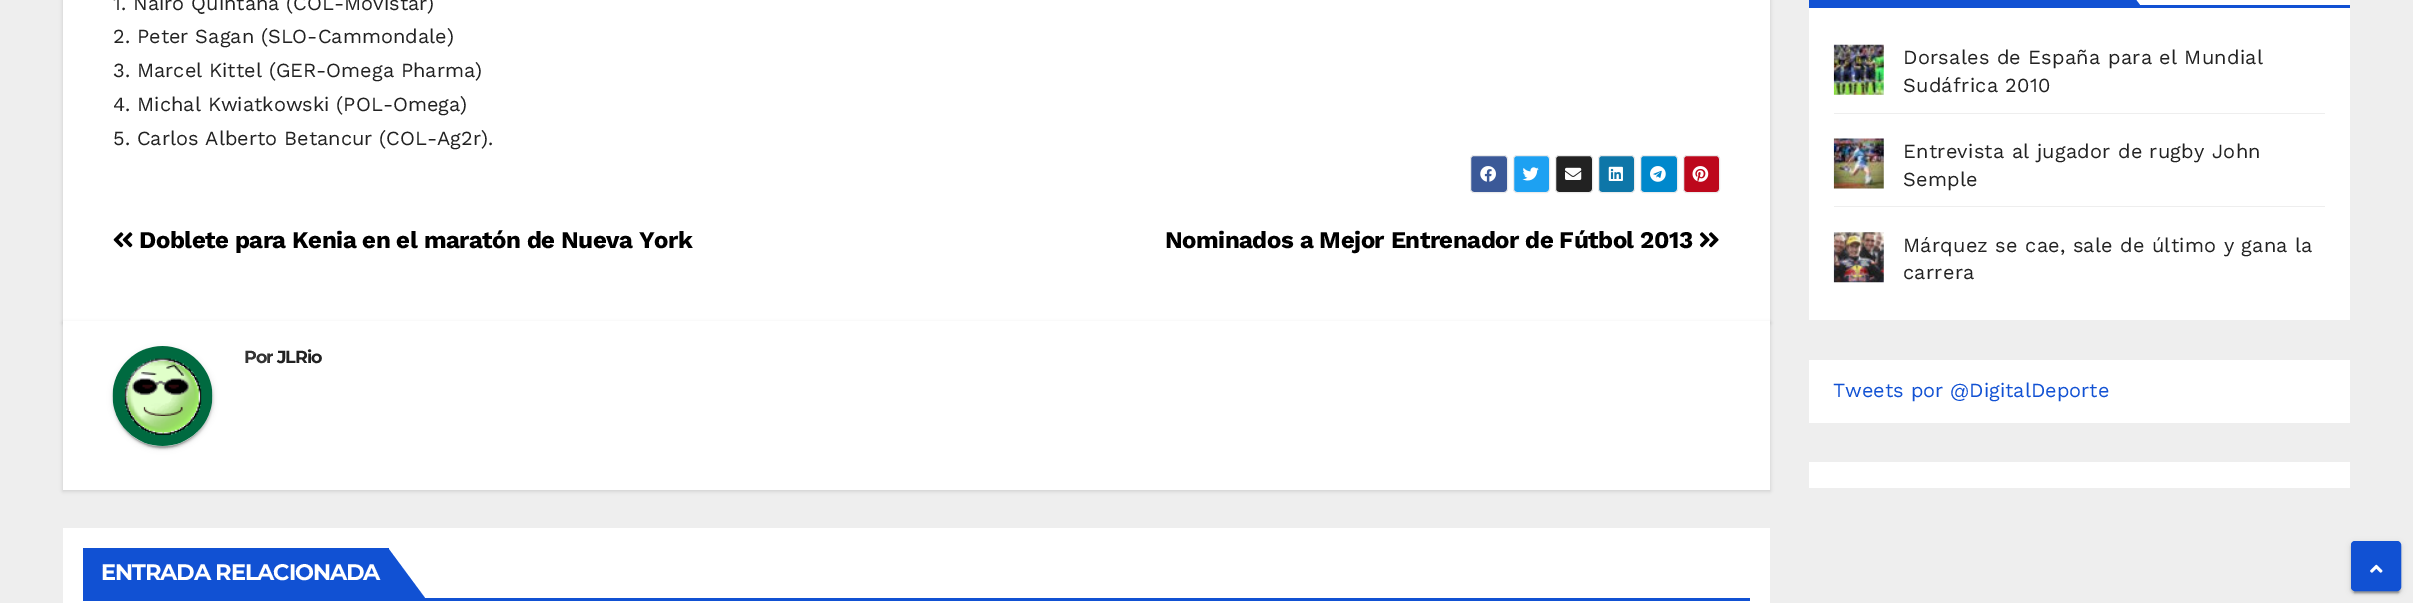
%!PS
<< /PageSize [2413 603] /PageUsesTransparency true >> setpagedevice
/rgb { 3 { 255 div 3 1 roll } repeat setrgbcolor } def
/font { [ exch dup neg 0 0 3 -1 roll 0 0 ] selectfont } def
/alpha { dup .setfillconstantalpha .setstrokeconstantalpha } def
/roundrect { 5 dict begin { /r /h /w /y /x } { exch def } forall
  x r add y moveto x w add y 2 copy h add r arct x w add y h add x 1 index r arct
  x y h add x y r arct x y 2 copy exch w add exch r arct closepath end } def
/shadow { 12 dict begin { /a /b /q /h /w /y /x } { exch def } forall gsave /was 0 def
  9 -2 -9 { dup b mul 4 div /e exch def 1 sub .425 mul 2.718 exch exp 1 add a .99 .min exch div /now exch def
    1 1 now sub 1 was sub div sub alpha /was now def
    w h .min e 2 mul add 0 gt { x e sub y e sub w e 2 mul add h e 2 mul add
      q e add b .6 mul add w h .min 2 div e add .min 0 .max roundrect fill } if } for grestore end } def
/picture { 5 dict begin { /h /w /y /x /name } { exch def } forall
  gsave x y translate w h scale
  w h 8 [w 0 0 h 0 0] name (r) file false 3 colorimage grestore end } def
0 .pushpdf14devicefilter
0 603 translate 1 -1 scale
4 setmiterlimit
238 238 238 rgb
0 0 2413 603 rectfill
0 0 0 rgb
63 -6 1707 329 0 2 0.15 shadow
255 255 255 rgb
63 0 1707 321 rectfill
59 89 152 rgb
1470.5 155.5 37 37 3.5 roundrect gsave fill grestore
235 235 235 rgb
stroke
(img/1.rgb) 1480 166 16 16 picture
29 161 242 rgb
1513.5 155.5 36 37 3.5 roundrect gsave fill grestore
235 235 235 rgb
stroke
(img/2.rgb) 1522 167 17 14 picture
34 34 34 rgb
1555.5 155.5 37 37 3.5 roundrect gsave fill grestore
235 235 235 rgb
stroke
(img/3.rgb) 1565 167 17 13 picture
14 118 168 rgb
1598.5 155.5 36 37 3.5 roundrect gsave fill grestore
235 235 235 rgb
stroke
(img/4.rgb) 1608 166 15 15 picture
0 136 204 rgb
1640.5 155.5 37 37 3.5 roundrect gsave fill grestore
235 235 235 rgb
stroke
(img/5.rgb) 1650 166 16 16 picture
189 8 28 rgb
1683.5 155.5 36 37 3.5 roundrect gsave fill grestore
235 235 235 rgb
stroke
(img/6.rgb) 1692 166 17 16 picture
(img/7.rgb) 113 232 20 16 picture
(img/8.rgb) 1699 232 20 16 picture
0 0 0 rgb
63 323 1707 168 0 2 0.15 shadow
255 255 255 rgb
63 321 1707 169 rectfill
0 0 0 rgb
113 348 100 100 50 3 0.12 shadow
115 353 95 95 47.5 0.5 0.2 shadow
113 349 100 100 50 1 0.14 shadow
(img/9.rgb) 112 346 101 100 picture
[
  [63 528 1707 75 255 255 255]
  [83 598 1667 3 17 81 211]
  [83 548 306 50 17 81 211]
] { aload pop rgb rectfill } forall
388 598 moveto 388 548 lineto 425 598 lineto closepath fill
[
  [1809 0 541 320 255 255 255]
  [1809 5 541 3 17 81 211]
  [1809 0 294 5 17 81 211]
] { aload pop rgb rectfill } forall
2102 5 moveto 2102 -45 lineto 2140 5 lineto closepath fill
238 238 238 rgb
1834 113 491 1 rectfill
(img/10.rgb) 1833 44 51 51 picture
1834 206 491 1 rectfill
(img/11.rgb) 1833 138 51 51 picture
(img/12.rgb) 1833 232 51 51 picture
255 255 255 rgb
1809 360 541 63 rectfill
1809 462 541 26 rectfill
0 0 0 rgb
2351 543 50 50 4 3 0.12 shadow
2354 548 45 45 1 0.5 0.2 shadow
2351 544 50 50 4 1 0.14 shadow
17 81 211 rgb
2352.5 542.5 47 47 2.5 roundrect gsave fill grestore
3 setlinewidth
stroke
(img/13.rgb) 2370 564 13 9 picture
/WorkSans-Regular 20 font
34 34 34 rgb
[
  [(1. Nairo Quintana \(COL-Movistar\)) 113 10]
  [(2. Peter Sagan \(SLO-Cammondale\)) 113 43]
  [(3. Marcel Kittel \(GER-Omega Pharma\)) 113 77]
  [(4. Michal Kwiatkowski \(POL-Omega\)) 113 111]
  [(5. Carlos Alberto Betancur \(COL-Ag2r\).) 113 145]
] { aload pop moveto show } forall
/WorkSans-Bold 24 font
0 0 0 rgb
139 248 moveto -0.5 0 (Doblete para Kenia en el maratón de Nueva York) ashow
1165 248 moveto -0.5 0 (Nominados a Mejor Entrenador de Fútbol 2013) ashow
/Montserrat-Bold 17.5 font
51 51 51 rgb
244 363 moveto -1 0 (Por) ashow
34 34 34 rgb
277 363 moveto -1 0 (JLRio) ashow
/Montserrat-Bold 22.5 font
255 255 255 rgb
101 580 moveto -1.1 0 (ENTRADA RELACIONADA) ashow
/WorkSans-Regular 20 font
34 34 34 rgb
1903 64 moveto 0.25 0 (Dorsales de España para el Mundial) ashow
1903 92 moveto 0.25 0 (Sudáfrica 2010) ashow
1903 158 moveto 0.25 0 (Entrevista al jugador de rugby John) ashow
1903 186 moveto 0.25 0 (Semple) ashow
1903 252 moveto 0.25 0 (Márquez se cae, sale de último y gana la) ashow
1903 279 moveto 0.25 0 (carrera) ashow
17 81 211 rgb
1833 397 moveto (Tweets por @DigitalDeporte) show
.poppdf14devicefilter showpage
